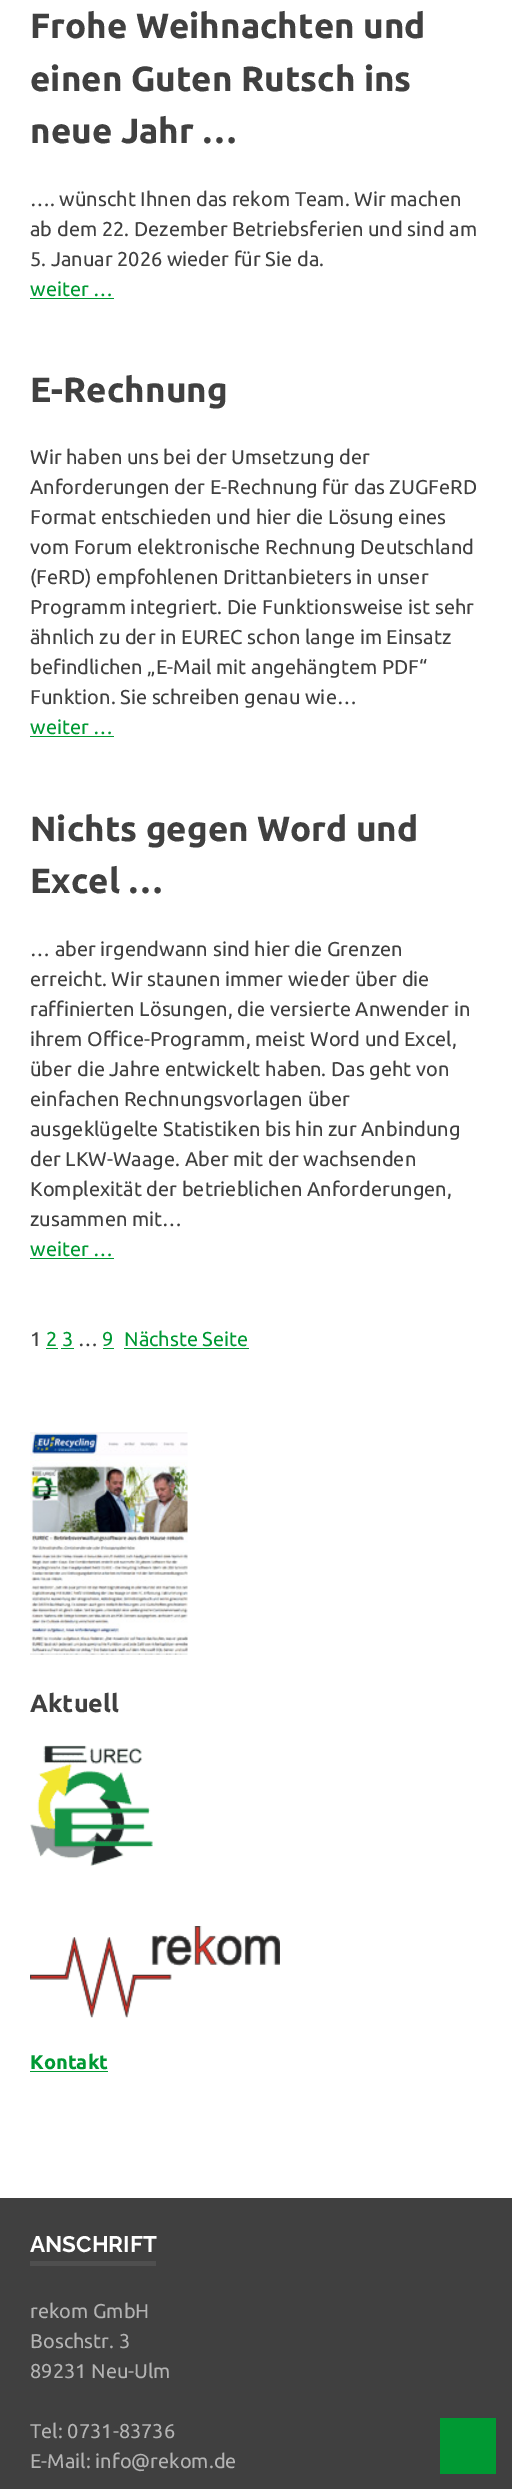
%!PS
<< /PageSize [512 2489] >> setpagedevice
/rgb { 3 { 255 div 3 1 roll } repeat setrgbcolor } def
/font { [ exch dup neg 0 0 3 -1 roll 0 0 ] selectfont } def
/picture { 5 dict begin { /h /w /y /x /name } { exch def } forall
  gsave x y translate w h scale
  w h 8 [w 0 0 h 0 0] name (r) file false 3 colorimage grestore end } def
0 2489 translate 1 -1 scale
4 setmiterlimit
255 255 255 rgb
0 0 512 2489 rectfill
[
  [30 298 84 1 0 153 51]
  [30 736 84 1 0 153 51]
  [30 1258 84 1 0 153 51]
  [46 1348 12 1 0 153 51]
  [103 1348 11 1 0 153 51]
  [61 1348 13 1 0 153 51]
  [124 1348 125 1 0 153 51]
] { aload pop rgb rectfill } forall
(img/1.rgb) 30 1432 158 223 picture
(img/2.rgb) 30 1745 123 121 picture
(img/3.rgb) 30 1926 250 92 picture
[
  [30 2071 78 1 0 153 51]
  [0 2198 512 291 64 64 64]
  [30 2261 126 5 79 79 79]
  [440 2418 56 56 0 153 51]
] { aload pop rgb rectfill } forall
/Ubuntu-Bold 35 font
64 64 64 rgb
[
  [(Frohe Weihnachten und) 30 38]
  [(einen Guten Rutsch ins) 30 91]
  [(neue Jahr …) 30 143]
] { aload pop moveto show } forall
/Ubuntu-Regular 20 font
[
  [(…. wünscht Ihnen das rekom Team. Wir machen) 30 206]
  [(ab dem 22. Dezember Betriebsferien und sind am) 30 236]
  [(5. Januar 2026 wieder für Sie da.) 30 266]
] { aload pop moveto show } forall
0 153 51 rgb
30 296 moveto (weiter …) show
/Ubuntu-Bold 35 font
64 64 64 rgb
30 402 moveto (E-Rechnung) show
/Ubuntu-Regular 20 font
[
  [(Wir haben uns bei der Umsetzung der) 30 464]
  [(Anforderungen der E-Rechnung für das ZUGFeRD) 30 494]
  [(Format entschieden und hier die Lösung eines) 30 524]
  [(vom Forum elektronische Rechnung Deutschland) 30 554]
  [(\(FeRD\) empfohlenen Drittanbieters in unser) 30 584]
  [(Programm integriert. Die Funktionsweise ist sehr) 30 614]
  [(ähnlich zu der in EUREC schon lange im Einsatz) 30 644]
  [(befindlichen „E-Mail mit angehängtem PDF“) 30 674]
  [(Funktion. Sie schreiben genau wie…) 30 704]
] { aload pop moveto show } forall
0 153 51 rgb
30 734 moveto (weiter …) show
/Ubuntu-Bold 35 font
64 64 64 rgb
30 841 moveto (Nichts gegen Word und) show
30 893 moveto (Excel …) show
/Ubuntu-Regular 20 font
[
  [(… aber irgendwann sind hier die Grenzen) 30 956]
  [(erreicht. Wir staunen immer wieder über die) 30 986]
  [(raffinierten Lösungen, die versierte Anwender in) 30 1016]
  [(ihrem Office-Programm, meist Word und Excel,) 30 1046]
  [(über die Jahre entwickelt haben. Das geht von) 30 1076]
  [(einfachen Rechnungsvorlagen über) 30 1106]
  [(ausgeklügelte Statistiken bis hin zur Anbindung) 30 1136]
  [(der LKW-Waage. Aber mit der wachsenden) 30 1166]
  [(Komplexität der betrieblichen Anforderungen,) 30 1196]
  [(zusammen mit…) 30 1226]
] { aload pop moveto show } forall
0 153 51 rgb
30 1256 moveto (weiter …) show
64 64 64 rgb
30 1346 moveto (1) show
0 153 51 rgb
46 1346 moveto (2 3) show
64 64 64 rgb
78 1346 moveto (…) show
0 153 51 rgb
102 1346 moveto (9) show
124 1346 moveto (Nächste Seite) show
/Ubuntu-Bold 25 font
64 64 64 rgb
30 1712 moveto (Aktuell) show
/Ubuntu-Bold 20 font
0 153 51 rgb
30 2069 moveto (Kontakt) show
/Raleway-Thin 22.5 font
255 255 255 rgb
30 2252 moveto (ANSCHRIFT) show
/Ubuntu-Regular 20 font
179 179 179 rgb
[
  [(rekom GmbH) 30 2318]
  [(Boschstr. 3) 30 2348]
  [(89231 Neu-Ulm) 30 2378]
  [(Tel: 0731-83736) 30 2438]
  [(E-Mail: info@rekom.de) 30 2468]
] { aload pop moveto show } forall
showpage
